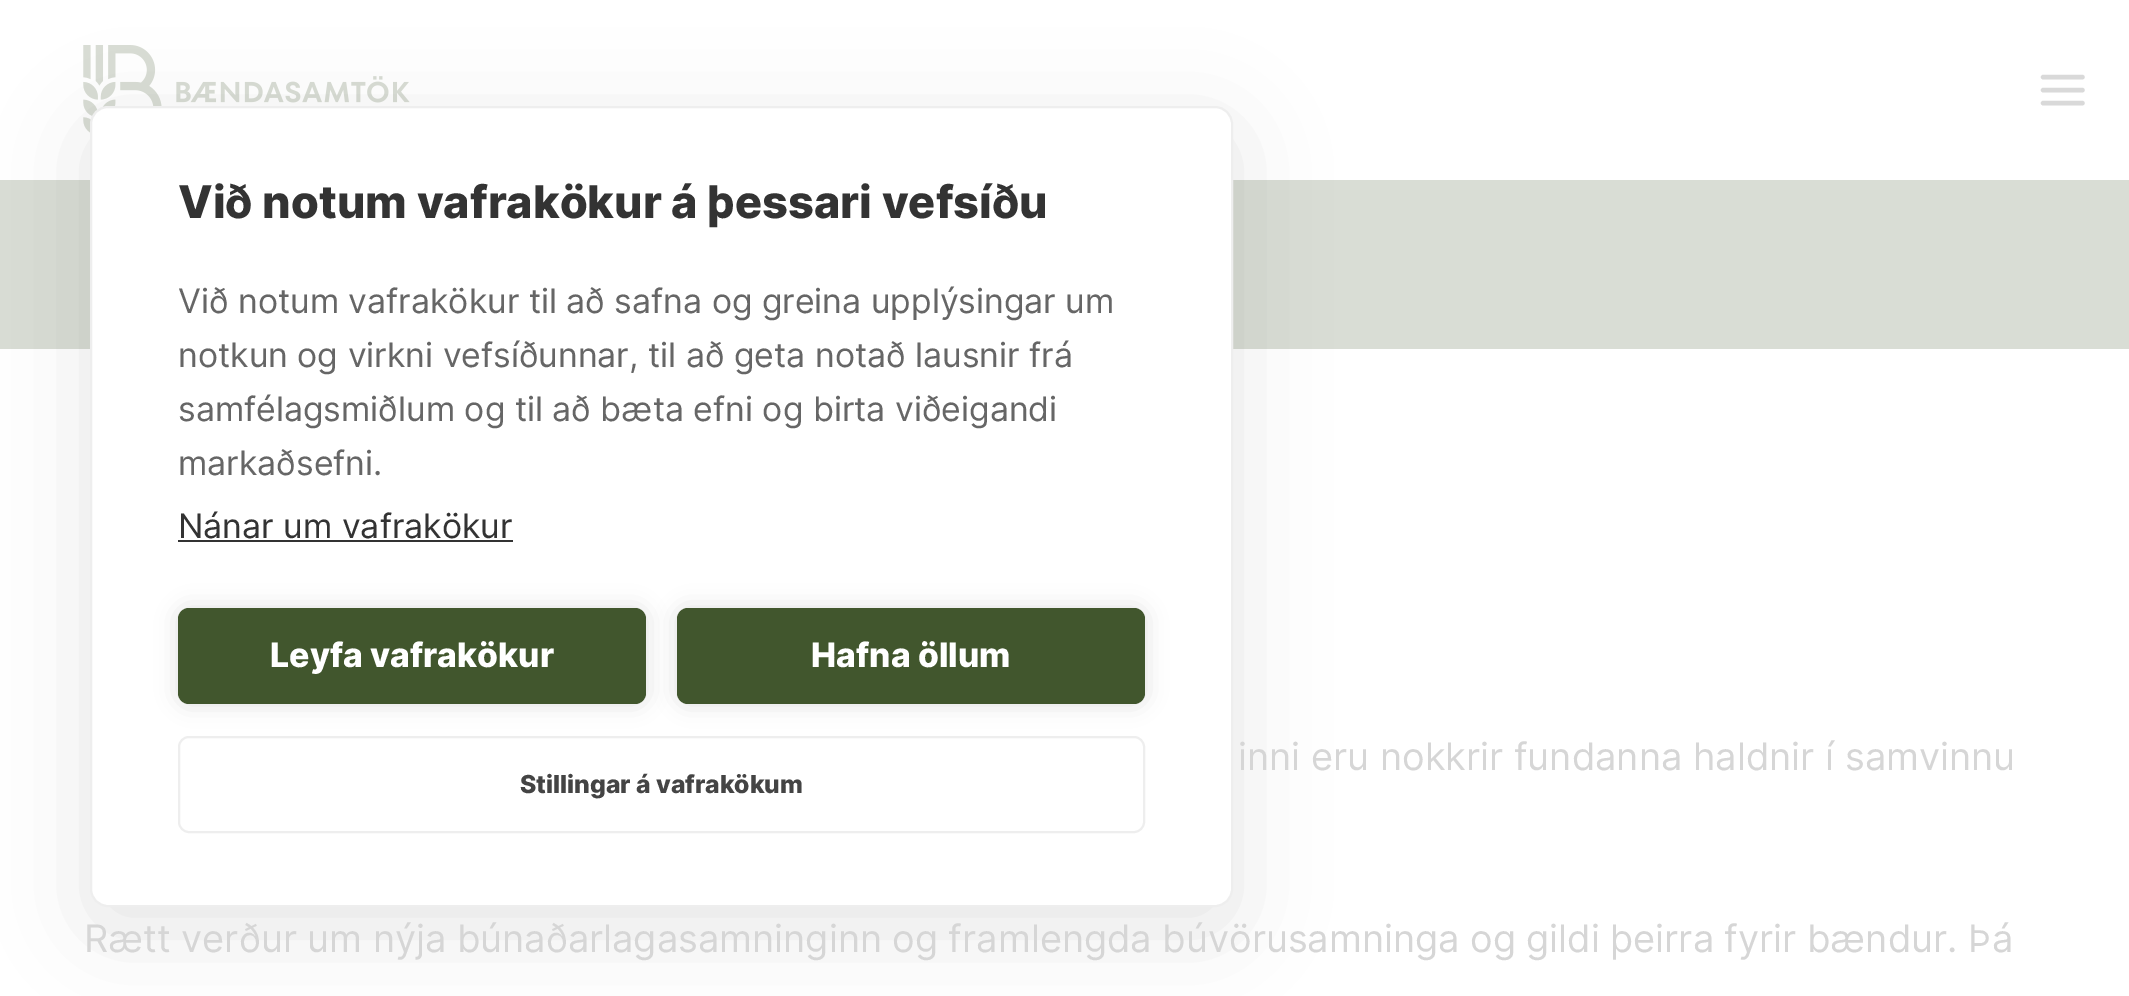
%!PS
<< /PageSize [2129 996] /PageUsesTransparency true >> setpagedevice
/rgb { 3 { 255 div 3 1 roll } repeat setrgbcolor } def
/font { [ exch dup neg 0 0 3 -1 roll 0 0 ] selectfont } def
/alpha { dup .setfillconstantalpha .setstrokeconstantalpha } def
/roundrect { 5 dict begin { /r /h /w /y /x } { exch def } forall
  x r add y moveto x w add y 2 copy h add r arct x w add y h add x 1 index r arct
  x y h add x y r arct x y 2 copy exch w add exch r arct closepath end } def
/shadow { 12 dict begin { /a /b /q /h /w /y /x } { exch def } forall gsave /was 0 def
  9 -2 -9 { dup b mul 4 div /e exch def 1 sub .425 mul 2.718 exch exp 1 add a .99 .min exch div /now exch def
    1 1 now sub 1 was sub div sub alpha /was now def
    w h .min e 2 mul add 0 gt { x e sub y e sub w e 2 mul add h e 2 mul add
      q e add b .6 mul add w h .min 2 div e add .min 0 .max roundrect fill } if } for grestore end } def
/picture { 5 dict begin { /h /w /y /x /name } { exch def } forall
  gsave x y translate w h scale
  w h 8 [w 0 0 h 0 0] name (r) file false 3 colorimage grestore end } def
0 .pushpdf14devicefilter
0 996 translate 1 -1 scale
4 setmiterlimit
255 255 255 rgb
0 0 2129 996 rectfill
(img/1.rgb) 83 45 327 88 picture
217 221 213 rgb
0 180 2129 169 rectfill
0 0 0 rgb
90 128 1143 801 18 45 0.1 shadow
255 255 255 rgb
91 107 1141 799 17 roundrect gsave fill grestore
238 238 238 rgb
2 setlinewidth
stroke
51 51 51 rgb
178 540 335 2 rectfill
0 0 0 rgb
178 608 468 96 11 11 0.12 shadow
65 86 45 rgb
178 608 468 96 11 roundrect fill
0 0 0 rgb
677 608 468 96 11 11 0.12 shadow
65 86 45 rgb
677 608 468 96 11 roundrect fill
238 238 238 rgb
179 737 965 95 10 roundrect stroke
217 217 217 rgb
4.4 setlinewidth
1 setlinecap
1 setlinejoin
2043 90 moveto 2082.5 90 lineto 2043 77 moveto 2082.5 77 lineto 2043 103 moveto 2082.5 103 lineto stroke
/Inter-ExtraBold 45 font
51 51 51 rgb
178 218 moveto (Við notum vafrakökur á þessari vefsíðu) show
/Inter-Regular 33.75 font
102 102 102 rgb
[
  [(Við notum vafrakökur til að safna og greina upplýsingar um) 178 313]
  [(notkun og virkni vefsíðunnar, til að geta notað lausnir frá) 178 367]
  [(samfélagsmiðlum og til að bæta efni og birta viðeigandi) 178 421]
  [(markaðsefni.) 178 475]
] { aload pop moveto show } forall
51 51 51 rgb
178 538 moveto (Nánar um vafrakökur) show
/Inter-ExtraBold 33.75 font
255 255 255 rgb
270 667 moveto (Leyfa vafrakökur) show
811 667 moveto (Hafna öllum) show
/Inter-ExtraBold 24.75 font
68 68 68 rgb
520 793 moveto (Stillingar á vafrakökum) show
/Inter-Regular 37.9 font
214 214 214 rgb
1238 770 moveto (inni eru nokkrir fundanna haldnir í samvinnu) show
84 952 moveto -0.2 0 32 (Rætt verður um nýja búnaðarlagasamninginn og framlengda búvörusamninga og gildi þeirra fyrir bændur. Þá) widthshow
.poppdf14devicefilter showpage
